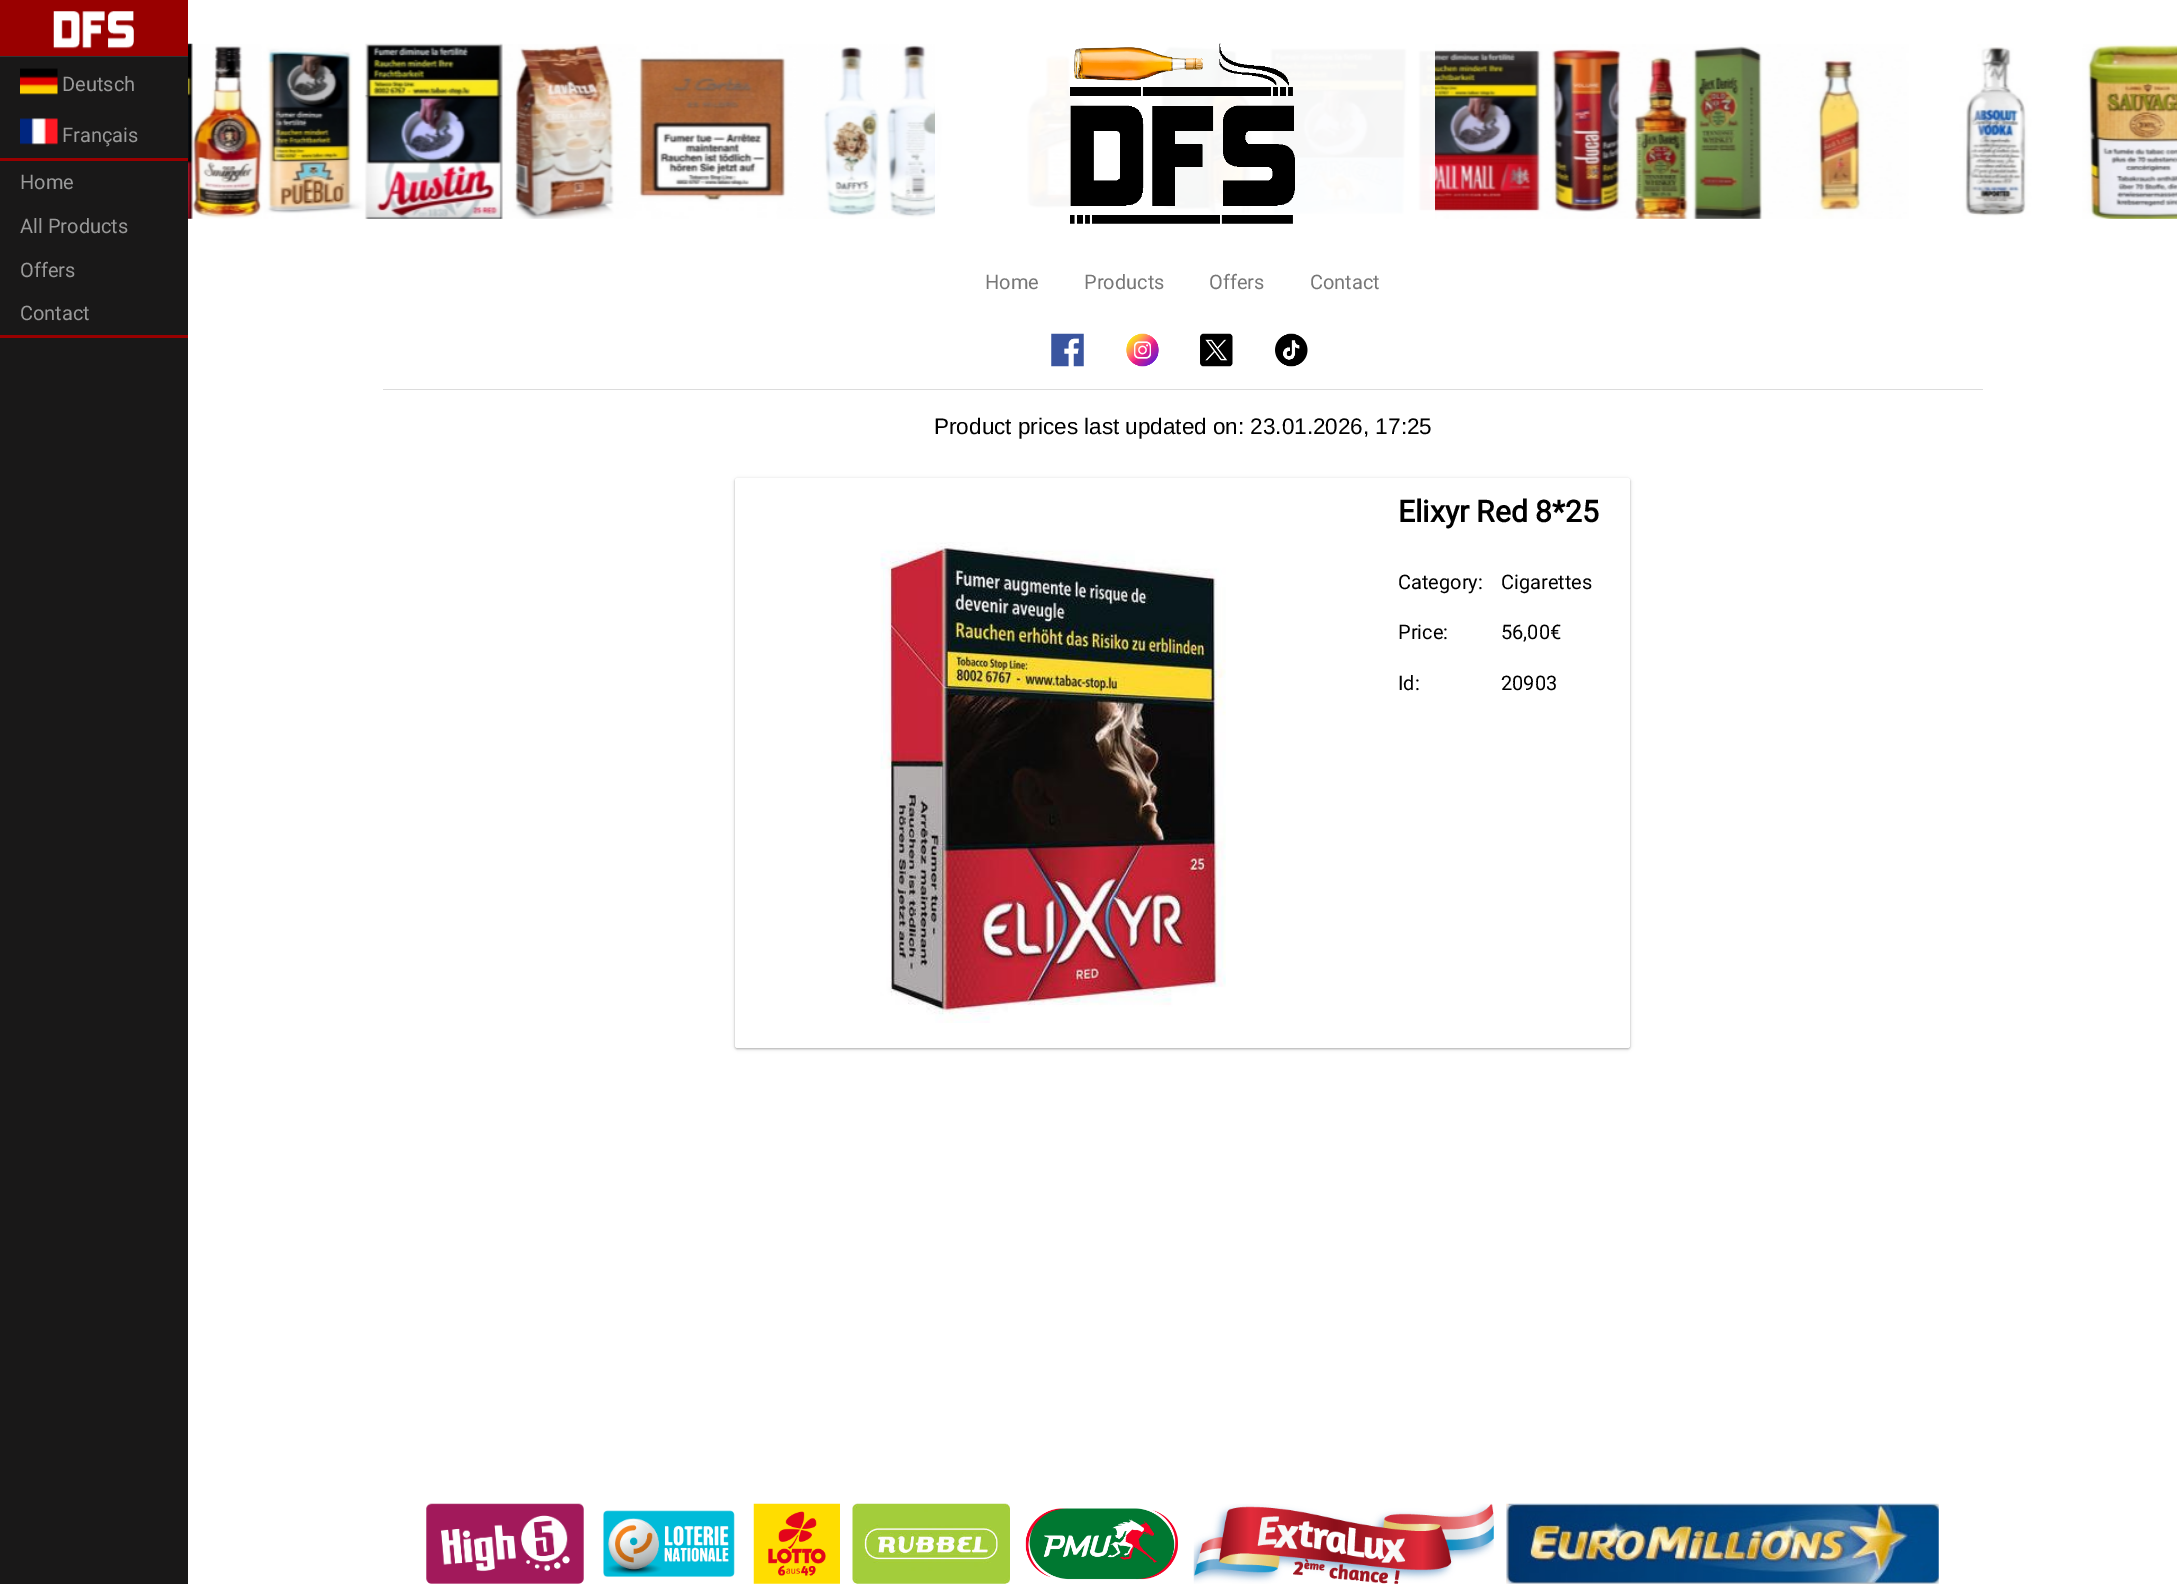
%!PS
<< /PageSize [2177 1584] /PageUsesTransparency true >> setpagedevice
/rgb { 3 { 255 div 3 1 roll } repeat setrgbcolor } def
/font { [ exch dup neg 0 0 3 -1 roll 0 0 ] selectfont } def
/alpha { dup .setfillconstantalpha .setstrokeconstantalpha } def
/roundrect { 5 dict begin { /r /h /w /y /x } { exch def } forall
  x r add y moveto x w add y 2 copy h add r arct x w add y h add x 1 index r arct
  x y h add x y r arct x y 2 copy exch w add exch r arct closepath end } def
/shadow { 12 dict begin { /a /b /q /h /w /y /x } { exch def } forall gsave /was 0 def
  9 -2 -9 { dup b mul 4 div /e exch def 1 sub .425 mul 2.718 exch exp 1 add a .99 .min exch div /now exch def
    1 1 now sub 1 was sub div sub alpha /was now def
    w h .min e 2 mul add 0 gt { x e sub y e sub w e 2 mul add h e 2 mul add
      q e add b .6 mul add w h .min 2 div e add .min 0 .max roundrect fill } if } for grestore end } def
/picture { 5 dict begin { /h /w /y /x /name } { exch def } forall
  gsave x y translate w h scale
  w h 8 [w 0 0 h 0 0] name (r) file false 3 colorimage grestore end } def
0 .pushpdf14devicefilter
0 1584 translate 1 -1 scale
4 setmiterlimit
255 255 255 rgb
0 0 2177 1584 rectfill
25 24 24 rgb
0 57 188 1527 rectfill
153 0 0 rgb
0 0 188 56 rectfill
(img/1.rgb) 53 11 81 38 picture
51 51 51 rgb
0 56 188 1 rectfill
(img/2.rgb) 20 68 38 27 picture
(img/3.rgb) 20 118 38 27 picture
153 0 0 rgb
0 158 188 3 rectfill
0 335 188 3 rectfill
(img/4.rgb) 188 43 1989 176 picture
0.96 alpha
255 255 255 rgb
935 44 500 175 rectfill
1 alpha
(img/5.rgb) 1070 43 225 181 picture
(img/6.rgb) 1051 333 33 34 picture
(img/7.rgb) 1126 333 33 34 picture
(img/8.rgb) 1200 333 33 34 picture
(img/9.rgb) 1275 333 33 34 picture
220 220 220 rgb
383 389 1600 1 rectfill
0 0 0 rgb
735 479 895 570 2.5 1 0.24 shadow
735 479 895 570 2.5 2 0.12 shadow
255 255 255 rgb
735 478 895 570 2.5 roundrect fill
(img/10.rgb) 880 542 346 481 picture
(img/11.rgb) 426 1503 158 81 picture
(img/12.rgb) 603 1510 132 67 picture
(img/13.rgb) 753 1503 87 81 picture
(img/14.rgb) 852 1503 158 81 picture
(img/15.rgb) 1025 1508 153 72 picture
(img/16.rgb) 1193 1503 301 81 picture
(img/17.rgb) 1506 1503 433 81 picture
/Roboto-Regular 20 font
153 153 153 rgb
[
  [(Deutsch) 62 91]
  [(Français) 62 142]
  [(Home) 20 189]
  [(All Products) 20 233]
  [(Offers) 20 277]
  [(Contact) 20 320]
] { aload pop moveto show } forall
119 119 119 rgb
[
  [(Home) 985 289]
  [(Products) 1084 289]
  [(Offers) 1209 289]
  [(Contact) 1310 289]
] { aload pop moveto show } forall
/LiberationSans-Regular 22.5 font
0 0 0 rgb
934 434 moveto (Product prices last updated on: 23.01.2026, 17:25) show
/Roboto-Bold 30 font
1398 522 moveto (Elixyr Red 8*25) show
/Roboto-Regular 20 font
[
  [(Category:) 1398 589]
  [(Cigarettes) 1501 589]
  [(Price:) 1398 639]
  [(56,00€) 1501 639]
  [(Id:) 1398 690]
  [(20903) 1501 690]
] { aload pop moveto show } forall
.poppdf14devicefilter showpage
